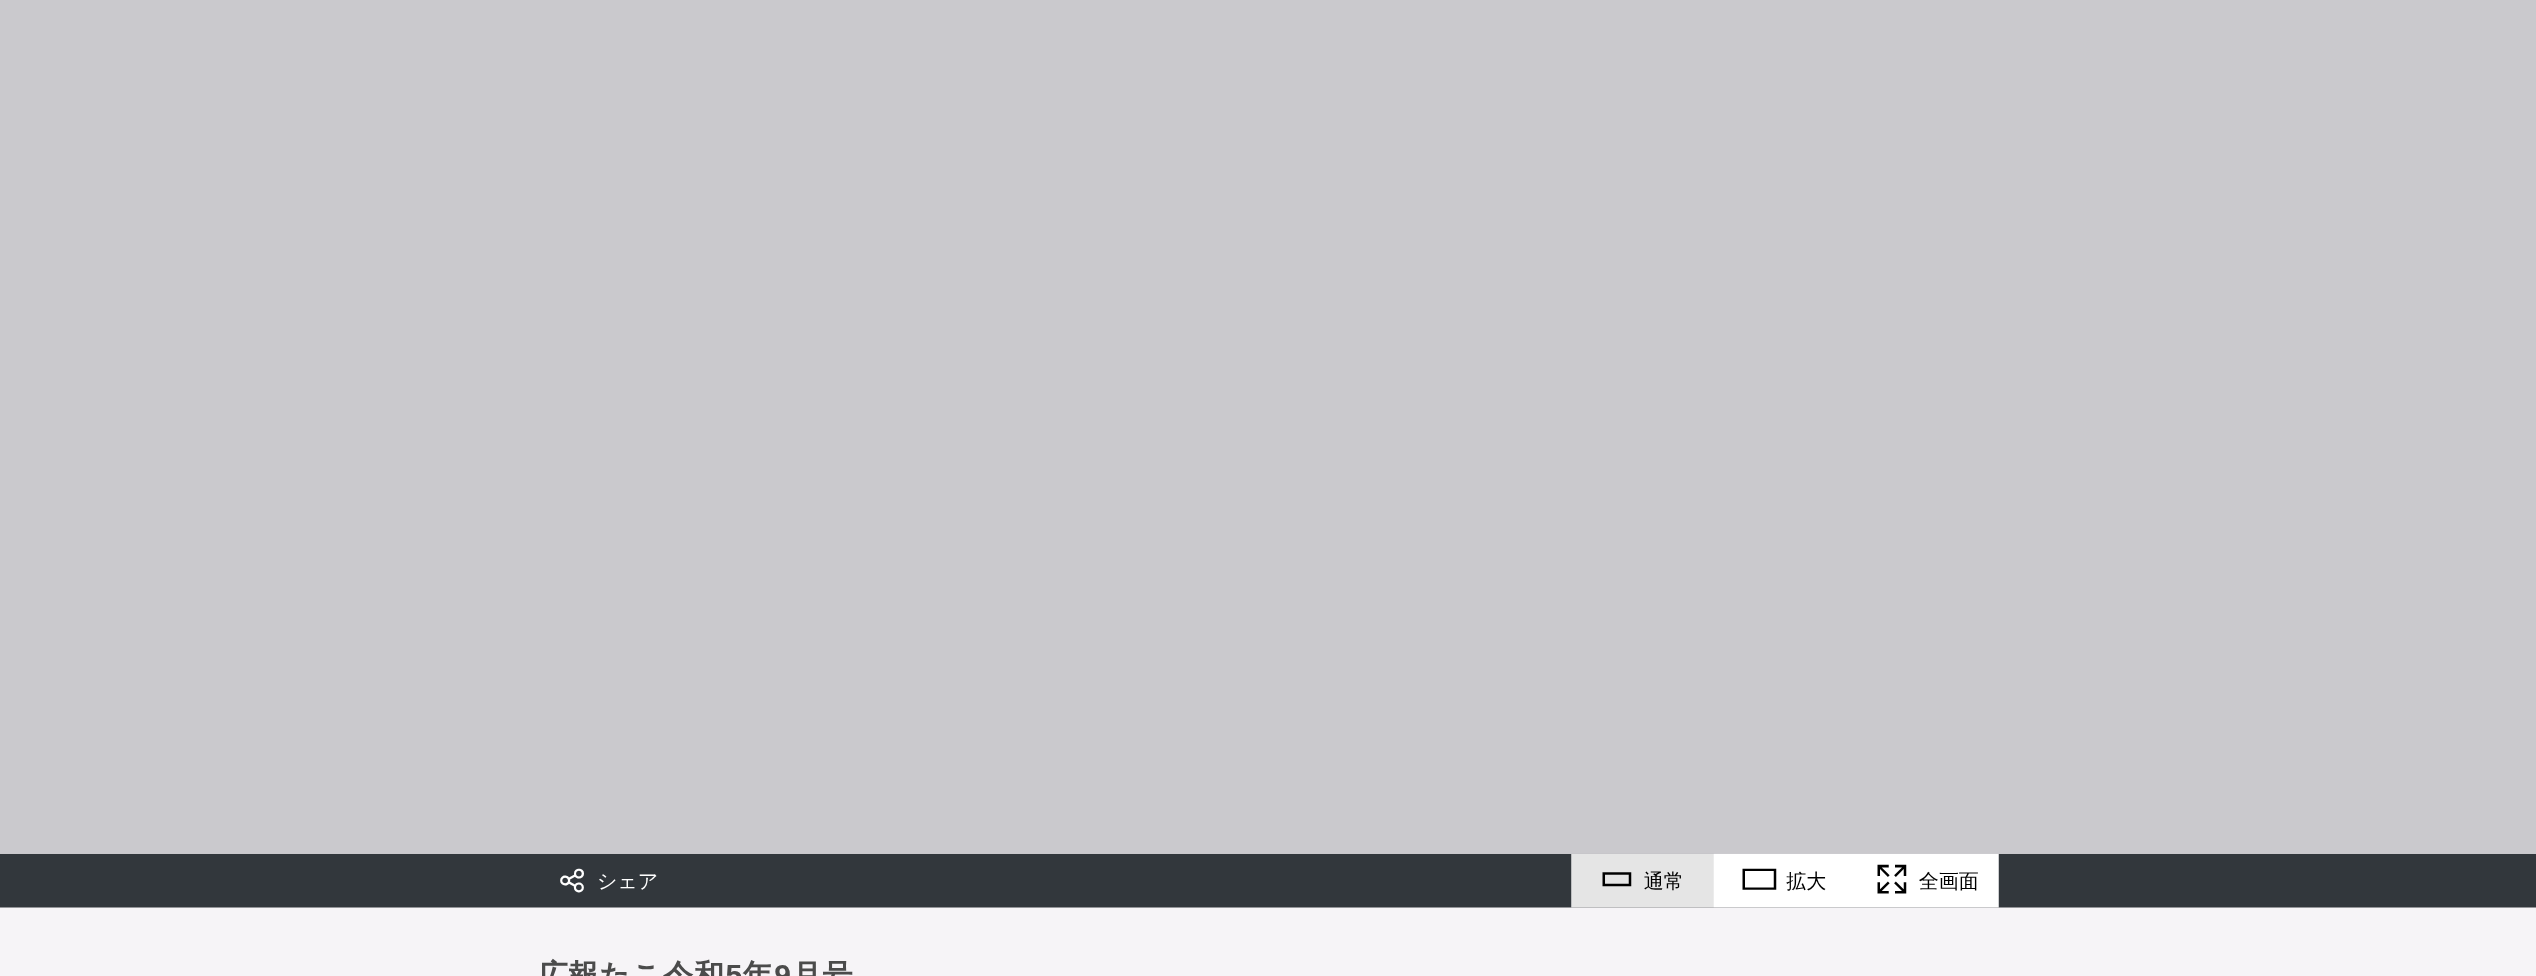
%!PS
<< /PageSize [2536 976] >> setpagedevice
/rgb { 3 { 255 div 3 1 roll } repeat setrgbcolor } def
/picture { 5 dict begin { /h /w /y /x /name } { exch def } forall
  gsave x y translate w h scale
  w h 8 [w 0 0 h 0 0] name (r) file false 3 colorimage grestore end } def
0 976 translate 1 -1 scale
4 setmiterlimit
255 255 255 rgb
0 0 2536 976 rectfill
(img/1.rgb) 0 0 2536 976 picture
showpage
